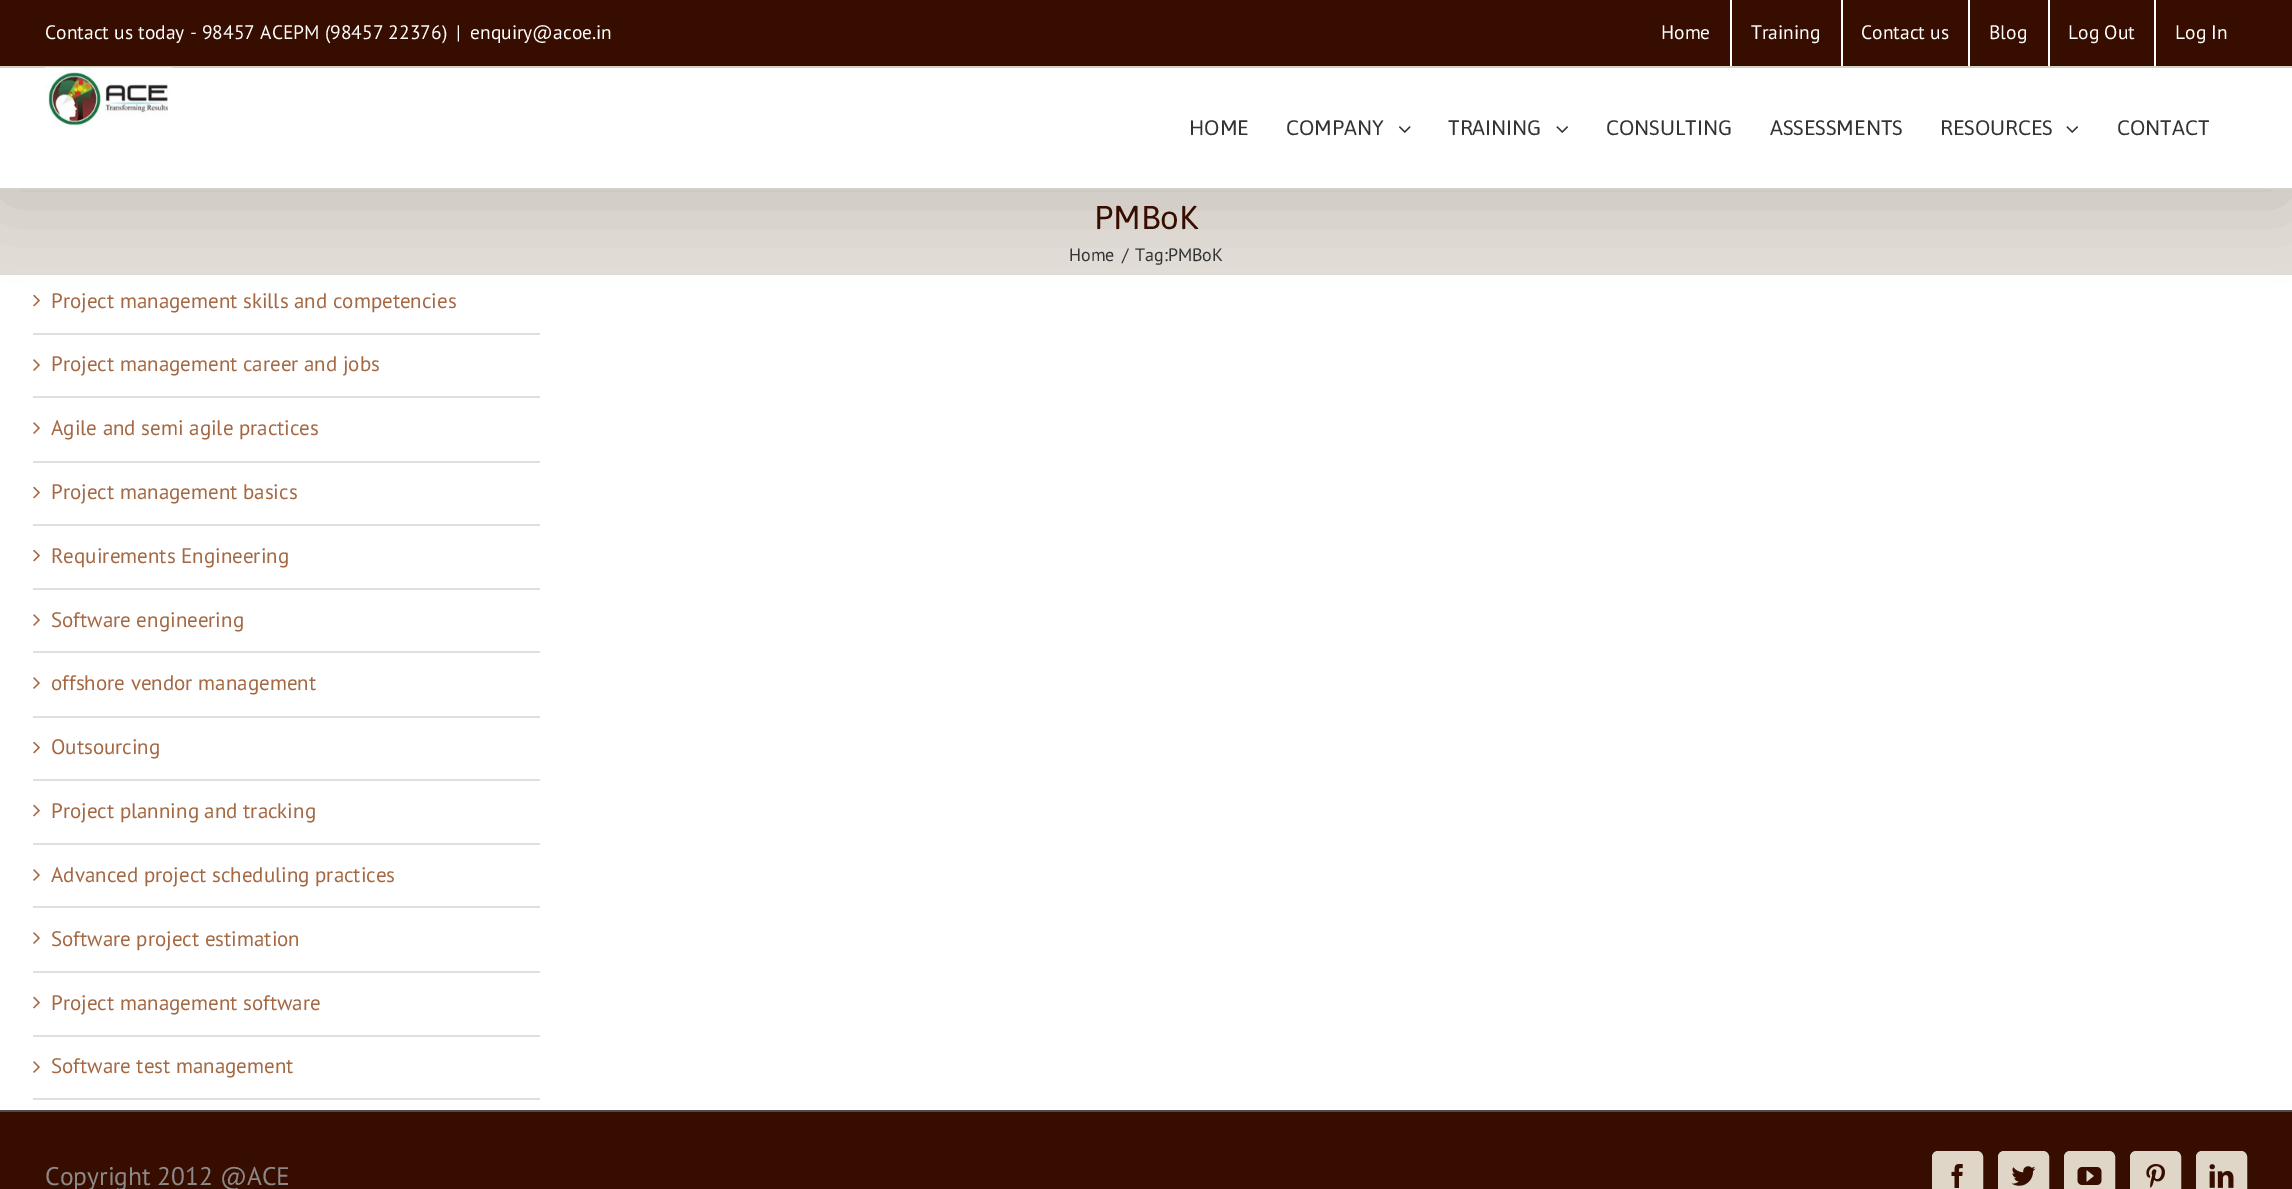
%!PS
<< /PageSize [2292 1189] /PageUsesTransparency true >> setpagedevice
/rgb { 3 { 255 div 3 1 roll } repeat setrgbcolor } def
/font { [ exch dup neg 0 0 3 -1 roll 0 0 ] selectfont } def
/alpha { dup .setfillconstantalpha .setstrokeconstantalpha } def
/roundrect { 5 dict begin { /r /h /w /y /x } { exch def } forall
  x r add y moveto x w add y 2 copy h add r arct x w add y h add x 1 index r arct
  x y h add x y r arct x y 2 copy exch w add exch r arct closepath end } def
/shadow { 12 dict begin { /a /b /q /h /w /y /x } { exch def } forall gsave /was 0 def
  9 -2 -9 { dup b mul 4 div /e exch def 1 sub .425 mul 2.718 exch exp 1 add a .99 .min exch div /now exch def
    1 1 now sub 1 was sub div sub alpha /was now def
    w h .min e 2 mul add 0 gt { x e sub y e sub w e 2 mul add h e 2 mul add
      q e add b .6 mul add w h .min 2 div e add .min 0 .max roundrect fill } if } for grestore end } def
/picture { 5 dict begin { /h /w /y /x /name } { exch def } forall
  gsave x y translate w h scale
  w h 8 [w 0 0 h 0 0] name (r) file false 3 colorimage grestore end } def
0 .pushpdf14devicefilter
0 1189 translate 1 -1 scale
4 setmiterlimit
226 222 215 rgb
0 0 2292 1189 rectfill
[
  [0 190 2292 1 221 220 219]
  [0 273 2292 2 221 220 219]
  [0 275 2292 835 255 255 255]
] { aload pop rgb rectfill } forall
(img/4.rgb) 33 294 7 13 picture
0 0 0 rgb
3 18 2286 183 0 37.5 0.14 shadow
[
  [0 0 2292 66 55 13 0]
  [0 66 2292 2 213 210 193]
  [1730 0 2 66 255 255 255]
  [1841 0 2 66 255 255 255]
  [1968 0 2 66 255 255 255]
  [2048 0 2 66 255 255 255]
  [2154 0 2 66 255 255 255]
  [0 68 2292 120 255 255 255]
  [0 188 2292 2 213 210 193]
] { aload pop rgb rectfill } forall
(img/1.rgb) 45 67 128 60 picture
(img/2.rgb) 1399 126 12 7 picture
(img/3.rgb) 1556 126 12 7 picture
(img/3.rgb) 2066 126 12 7 picture
224 222 222 rgb
33 333 507 2 rectfill
33 396 507 2 rectfill
(img/5.rgb) 33 359 7 12 picture
33 461 507 2 rectfill
(img/5.rgb) 33 422 7 12 picture
33 524 507 2 rectfill
(img/4.rgb) 33 486 7 13 picture
33 588 507 2 rectfill
(img/4.rgb) 33 549 7 13 picture
33 651 507 2 rectfill
(img/5.rgb) 33 614 7 12 picture
33 716 507 2 rectfill
(img/5.rgb) 33 677 7 12 picture
33 779 507 2 rectfill
(img/4.rgb) 33 741 7 13 picture
33 843 507 2 rectfill
(img/4.rgb) 33 804 7 13 picture
33 906 507 2 rectfill
(img/5.rgb) 33 869 7 12 picture
33 971 507 2 rectfill
(img/5.rgb) 33 932 7 12 picture
33 1035 507 2 rectfill
(img/4.rgb) 33 996 7 13 picture
33 1098 507 2 rectfill
(img/5.rgb) 33 1061 7 12 picture
55 13 0 rgb
0 1112 2292 77 rectfill
75 76 77 rgb
0 1110 2292 2 rectfill
224 214 199 rgb
1933 1152 49 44 5 roundrect gsave fill grestore
2 setlinewidth
stroke
(img/6.rgb) 1951 1164 12 24 picture
1999 1152 49 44 5 roundrect gsave fill grestore
stroke
(img/7.rgb) 2011 1166 25 20 picture
2065 1152 49 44 5 roundrect gsave fill grestore
stroke
(img/8.rgb) 2077 1167 25 18 picture
2131 1152 49 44 5 roundrect gsave fill grestore
stroke
(img/9.rgb) 2146 1164 19 24 picture
2197 1152 49 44 5 roundrect gsave fill grestore
stroke
(img/10.rgb) 2209 1164 25 24 picture
/PTSans-Regular 19.5 font
255 255 255 rgb
[
  [(Contact us today - 98457 ACEPM \(98457 22376\)) 45 39]
  [(|) 456 39]
  [(enquiry@acoe.in) 470 39]
  [(Home) 1661 39]
  [(Training) 1751 39]
  [(Contact us) 1861 39]
  [(Blog) 1989 39]
  [(Log Out) 2068 39]
  [(Log In) 2175 39]
] { aload pop moveto show } forall
/Asap-Regular 21 font
51 51 51 rgb
[
  [(HOME) 1189 135]
  [(COMPANY) 1286 135]
  [(TRAINING) 1448 135]
  [(CONSULTING) 1606 135]
  [(ASSESSMENTS) 1770 135]
  [(RESOURCES) 1940 135]
  [(CONTACT) 2117 135]
] { aload pop moveto show } forall
/Asap-Regular 33 font
55 13 0 rgb
1094 229 moveto (PMBoK) show
/PTSans-Regular 18 font
51 51 51 rgb
[
  [(Home) 1069 261]
  [(/) 1122 261]
  [(Tag:PMBoK) 1135 261]
] { aload pop moveto show } forall
/PTSans-Regular 21 font
164 104 67 rgb
[
  [(Project management skills and competencies) 51 308]
  [(Project management career and jobs) 51 371]
  [(Agile and semi agile practices) 51 435]
  [(Project management basics) 51 499]
  [(Requirements Engineering) 51 563]
  [(Software engineering) 51 627]
  [(offshore vendor management) 51 690]
  [(Outsourcing) 51 754]
  [(Project planning and tracking) 51 818]
  [(Advanced project scheduling practices) 51 882]
  [(Software project estimation) 51 946]
  [(Project management software) 51 1010]
  [(Software test management) 51 1073]
] { aload pop moveto show } forall
/PTSans-Regular 25.5 font
140 137 137 rgb
45 1185 moveto (Copyright 2012 @ACE) show
.poppdf14devicefilter showpage
